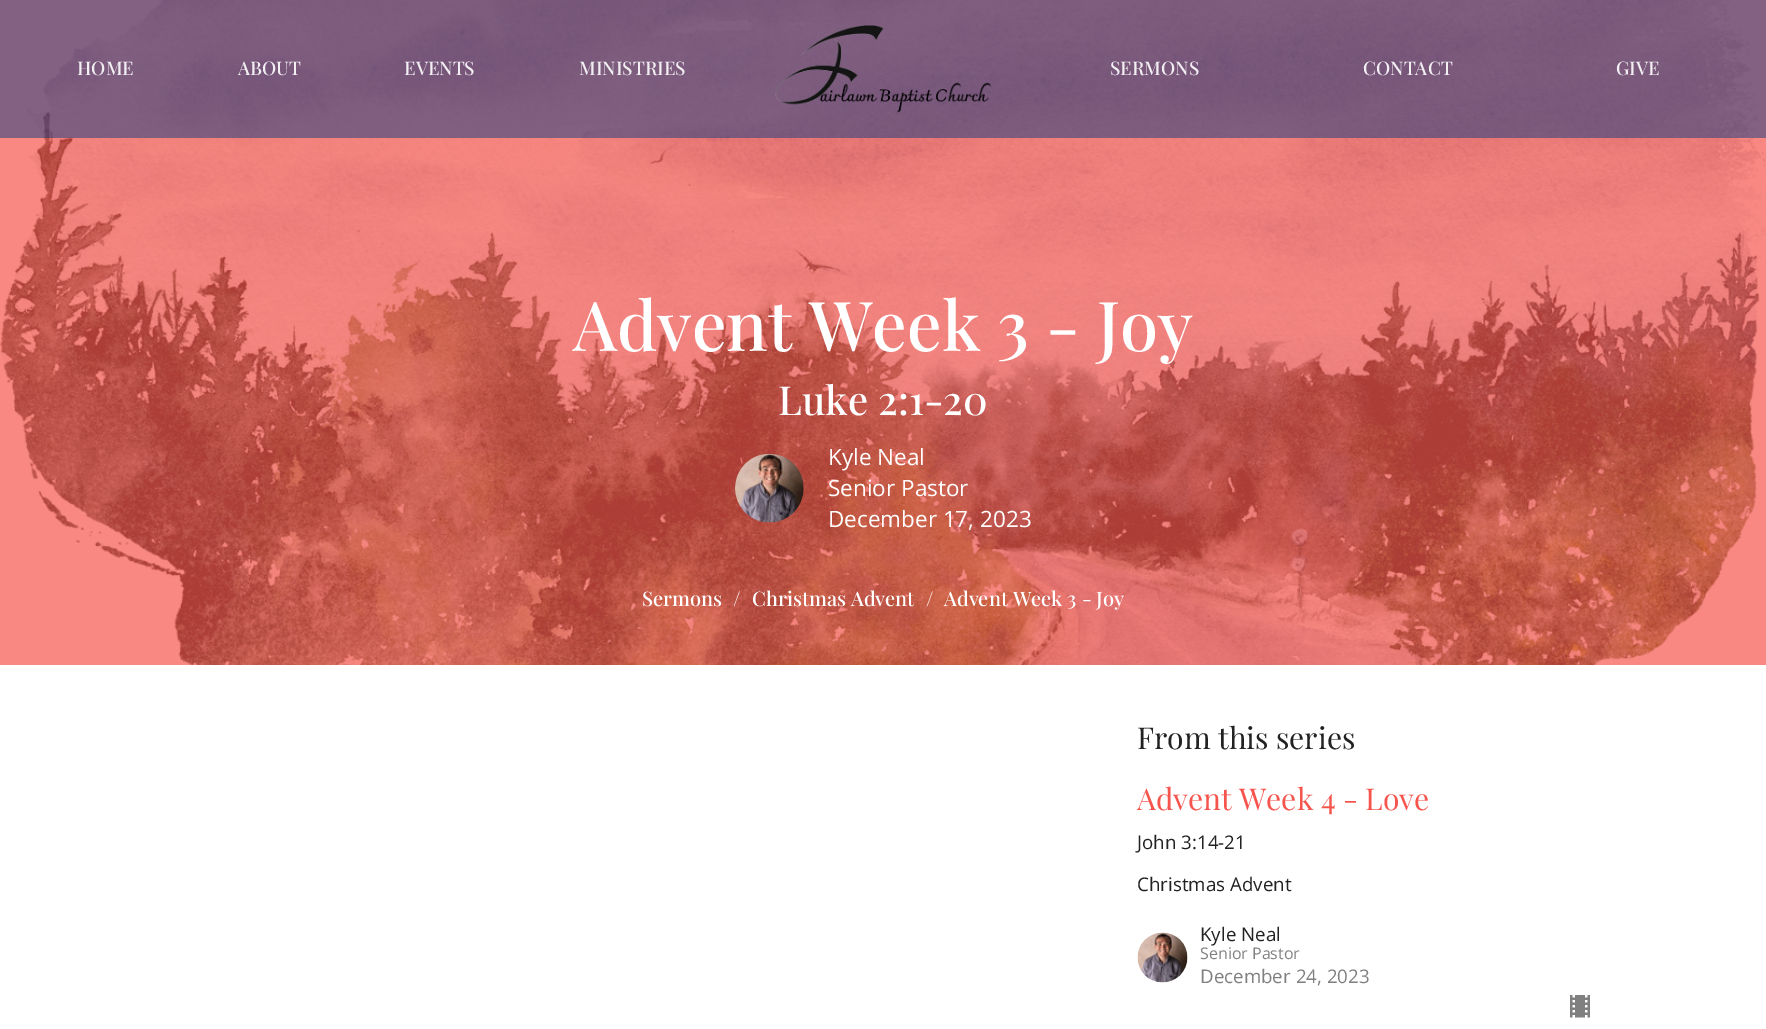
%!PS
<< /PageSize [1766 1029] /PageUsesTransparency true >> setpagedevice
/rgb { 3 { 255 div 3 1 roll } repeat setrgbcolor } def
/font { [ exch dup neg 0 0 3 -1 roll 0 0 ] selectfont } def
/alpha { dup .setfillconstantalpha .setstrokeconstantalpha } def
/picture { 5 dict begin { /h /w /y /x /name } { exch def } forall
  gsave x y translate w h scale
  w h 8 [w 0 0 h 0 0] name (r) file false 3 colorimage grestore end } def
0 .pushpdf14devicefilter
0 1029 translate 1 -1 scale
4 setmiterlimit
255 255 255 rgb
0 0 1766 1029 rectfill
(img/2.rgb) 0 0 1766 665 picture
0.53 alpha
25 62 130 rgb
0 0 1766 138 rectfill
1 alpha
(img/1.rgb) 775 25 217 88 picture
(img/3.rgb) 735 453 69 70 picture
(img/4.rgb) 1137 932 51 51 picture
(img/5.rgb) 1570 995 20 23 picture
/PlayfairDisplay-Medium 18.75 font
242 239 242 rgb
[
  [(HOME) 77 75]
  [(ABOUT) 238 75]
  [(EVENTS) 404 75]
  [(MINISTRIES) 579 75]
  [(SERMONS) 1110 75]
  [(CONTACT) 1363 75]
  [(GIVE) 1616 75]
] { aload pop moveto show } forall
/PlayfairDisplay-Medium 68.75 font
255 255 255 rgb
573 351 moveto (Advent Week 3 - Joy) show
/PlayfairDisplay-Medium 40 font
778 415 moveto (Luke 2:1-20) show
/OpenSans-Regular 22.5 font
[
  [(Kyle Neal) 828 465]
  [(Senior Pastor) 828 496]
  [(December 17, 2023) 828 527]
] { aload pop moveto show } forall
/PlayfairDisplay-Medium 20 font
[
  [(Sermons) 642 606]
  [(/) 733 606]
  [(Christmas Advent) 752 606]
  [(/) 926 606]
  [(Advent Week 3 - Joy) 944 606]
] { aload pop moveto show } forall
/PlayfairDisplay-Regular 30 font
34 34 34 rgb
1137 749 moveto (From this series) show
246 85 77 rgb
1137 810 moveto (Advent Week 4 - Love) show
/OpenSans-Regular 18.75 font
34 34 34 rgb
[
  [(John 3:14-21) 1137 849]
  [(Christmas Advent) 1137 891]
  [(Kyle Neal) 1200 941]
] { aload pop moveto show } forall
/OpenSans-Regular 16 font
128 128 128 rgb
1200 959 moveto (Senior Pastor) show
/OpenSans-Regular 18.75 font
1200 983 moveto (December 24, 2023) show
.poppdf14devicefilter showpage
